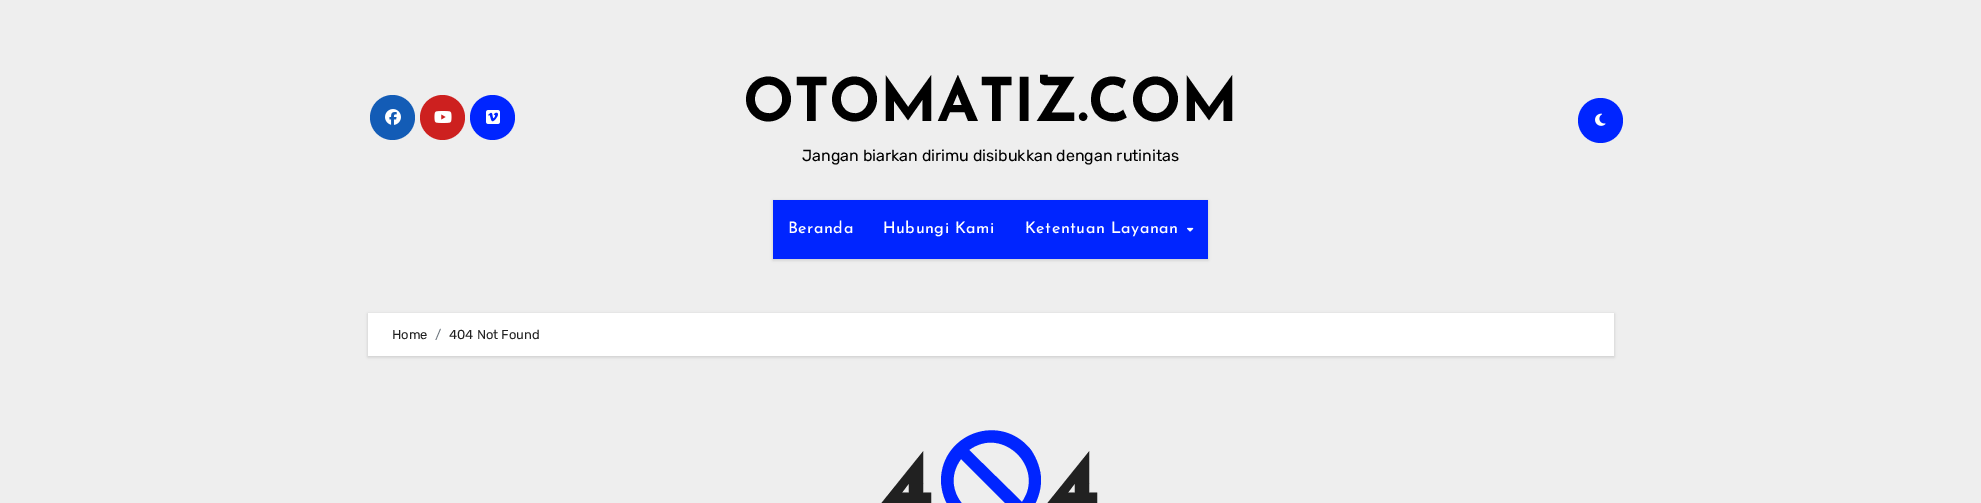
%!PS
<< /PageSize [1981 503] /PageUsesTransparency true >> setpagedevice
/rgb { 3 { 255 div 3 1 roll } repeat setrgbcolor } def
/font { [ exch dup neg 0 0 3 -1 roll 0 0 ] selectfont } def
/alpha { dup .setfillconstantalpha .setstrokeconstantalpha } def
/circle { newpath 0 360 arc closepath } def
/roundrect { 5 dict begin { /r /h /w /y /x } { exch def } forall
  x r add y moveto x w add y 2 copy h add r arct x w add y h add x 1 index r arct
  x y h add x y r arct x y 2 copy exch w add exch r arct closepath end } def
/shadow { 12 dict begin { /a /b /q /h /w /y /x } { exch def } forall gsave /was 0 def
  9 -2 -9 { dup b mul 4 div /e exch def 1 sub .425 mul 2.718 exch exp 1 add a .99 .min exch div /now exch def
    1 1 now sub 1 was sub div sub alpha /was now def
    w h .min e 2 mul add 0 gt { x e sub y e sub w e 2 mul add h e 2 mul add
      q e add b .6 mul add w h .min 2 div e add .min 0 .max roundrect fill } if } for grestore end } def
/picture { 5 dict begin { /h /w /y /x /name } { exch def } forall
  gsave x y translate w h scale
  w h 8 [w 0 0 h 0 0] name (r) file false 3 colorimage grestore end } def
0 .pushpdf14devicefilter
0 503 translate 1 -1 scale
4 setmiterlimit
238 238 238 rgb
0 0 1981 503 rectfill
19 92 182 rgb
392.5 117.5 22.5 circle fill
(img/1.rgb) 385 109 16 16 picture
205 32 31 rgb
442.5 117.5 22.5 circle fill
(img/2.rgb) 434 111 18 12 picture
0 37 255 rgb
492.5 117.5 22.5 circle fill
(img/3.rgb) 486 110 14 14 picture
1600.5 120.5 22.5 circle fill
(img/4.rgb) 1595 113 11 13 picture
0 0 0 rgb
773 201 435 59 0 1.5 0.15 shadow
0 37 255 rgb
773 200 435 59 rectfill
(img/5.rgb) 1187 227 7 5 picture
0 0 0 rgb
368 314 1246 43 0 1.5 0.15 shadow
255 255 255 rgb
368 313 1246 43 rectfill
0 37 255 rgb
1013 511 moveto 961 459 lineto 936 493 979 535 1013 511 curveto closepath 1022 502 moveto 1046 468 1003 425 969 450 curveto closepath 941 480 moveto 942 433 1001 412 1031 450 curveto 1037 459 1041 470 1041 480 curveto 1041 491 1037 502 1031 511 curveto 1001 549 942 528 941 480 curveto closepath fill
/JosefinSans-Bold 60 font
0 0 0 rgb
743 121 moveto (OTOMATIZ.COM) show
/Rubik-Light 16 font
802 161 moveto (Jangan biarkan dirimu disibukkan dengan rutinitas) show
/JosefinSans-Medium 16 font
255 255 255 rgb
788 233 moveto 0.5 0 (Beranda) ashow
883 233 moveto 0.5 0 (Hubungi Kami) ashow
1025 233 moveto 0.5 0 (Ketentuan Layanan) ashow
/Rubik-Light 13 font
33 33 33 rgb
392 339 moveto (Home) show
108 117 125 rgb
435 339 moveto (/) show
33 33 33 rgb
449 339 moveto (404 Not Found) show
/JosefinSans-Bold 100 font
880 518 moveto (4) show
1046 518 moveto (4) show
.poppdf14devicefilter showpage
